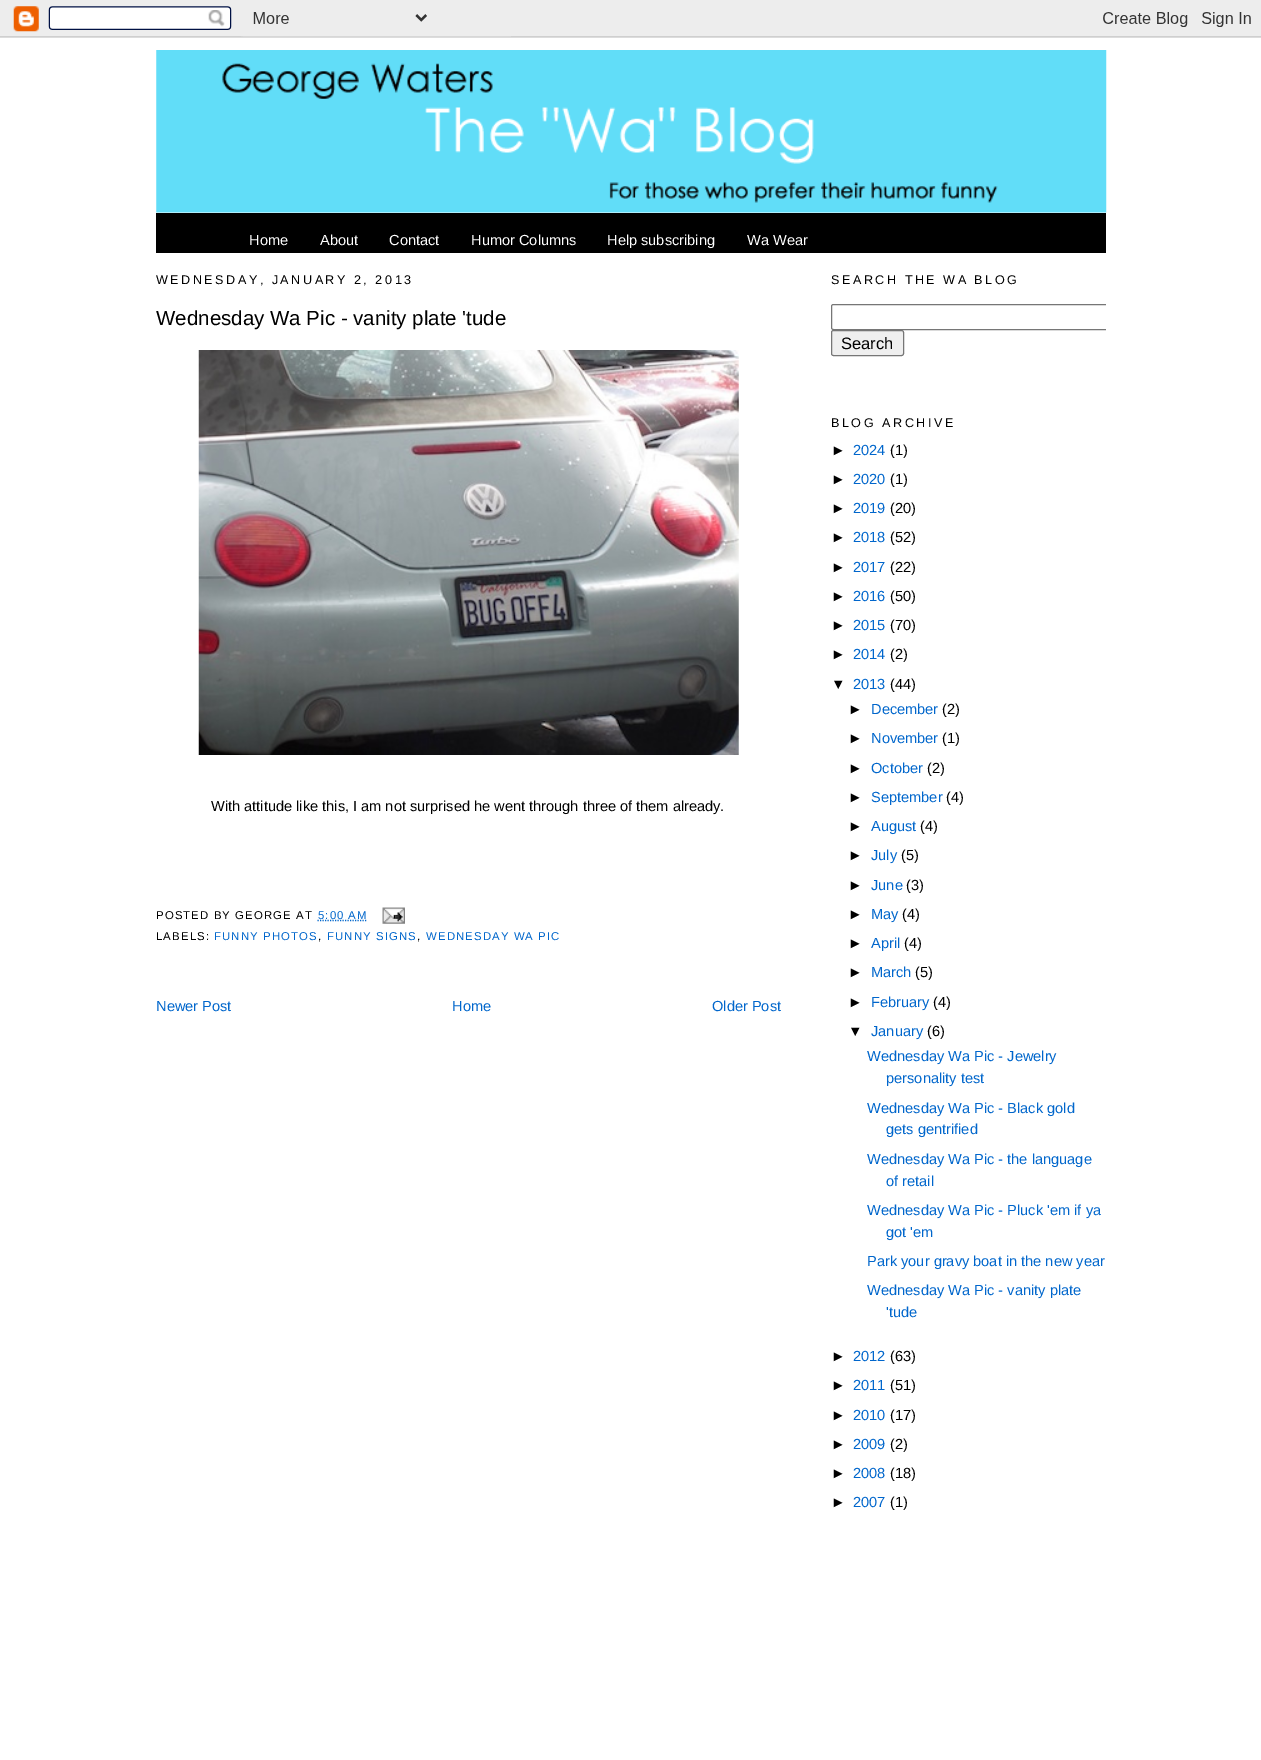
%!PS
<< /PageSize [1261 1760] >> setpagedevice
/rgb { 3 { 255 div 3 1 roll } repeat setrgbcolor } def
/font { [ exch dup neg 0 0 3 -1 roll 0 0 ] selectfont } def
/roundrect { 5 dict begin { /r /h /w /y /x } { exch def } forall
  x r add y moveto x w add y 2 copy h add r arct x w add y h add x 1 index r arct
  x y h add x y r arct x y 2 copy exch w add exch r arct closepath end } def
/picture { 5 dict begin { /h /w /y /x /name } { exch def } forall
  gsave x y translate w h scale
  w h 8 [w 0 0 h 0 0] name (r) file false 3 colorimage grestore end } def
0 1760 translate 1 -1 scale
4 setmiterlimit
255 255 255 rgb
0 0 1261 1760 rectfill
(img/1.rgb) 0 0 1261 38 picture
(img/2.rgb) 156 50 951 163 picture
0 0 0 rgb
156 213 950 40 rectfill
(img/3.rgb) 198 350 541 405 picture
0 102 204 rgb
1.2 setlinewidth
[1.25 1.25] 0 setdash
317.5 920.5 moveto 367 920.5 lineto stroke
(img/4.rgb) 382 907 23 17 picture
gsave
831 253 275 1355 rectclip
118 118 118 rgb
1 setlinewidth
[] 0 setdash
831.5 304.5 281 25 2 roundrect stroke
grestore
239 239 239 rgb
831.5 330.5 72 25 2 roundrect gsave fill grestore
118 118 118 rgb
1 setlinewidth
[] 0 setdash
stroke
/LiberationSans-Regular 14.6 font
255 255 255 rgb
[
  [(Home) 249 245]
  [(About) 320 245]
  [(Contact) 389 245]
  [(Humor Columns) 471 245]
  [(Help subscribing) 607 245]
  [(Wa Wear) 747 245]
] { aload pop moveto show } forall
/LiberationSans-Regular 12.6 font
0 0 0 rgb
156 284 moveto 2.5 0 (WEDNESDAY, JANUARY 2, 2013) ashow
/LiberationSans-Regular 20.5 font
156 325 moveto (Wednesday Wa Pic - vanity plate 'tude) show
/LiberationSans-Regular 14.6 font
211 811 moveto (With attitude like this, I am not surprised he went through three of them already.) show
/LiberationSans-Regular 11.4 font
156 919 moveto 1.1 0 (POSTED BY GEORGE AT) ashow
0 102 204 rgb
318 919 moveto 1.1 0 (5:00 AM) ashow
0 0 0 rgb
156 940 moveto 1.1 0 (LABELS:) ashow
0 102 204 rgb
214 940 moveto 1.1 0 (FUNNY PHOTOS) ashow
0 0 0 rgb
318 940 moveto 1.1 0 (,) ashow
0 102 204 rgb
327 940 moveto 1.1 0 (FUNNY SIGNS) ashow
0 0 0 rgb
417 940 moveto 1.1 0 (,) ashow
0 102 204 rgb
426 940 moveto 1.1 0 (WEDNESDAY WA PIC) ashow
/LiberationSans-Regular 14.6 font
[
  [(Newer Post) 156 1011]
  [(Home) 452 1011]
  [(Older Post) 712 1011]
] { aload pop moveto show } forall
/LiberationSans-Regular 12.6 font
0 0 0 rgb
831 284 moveto 2.5 0 (SEARCH THE WA BLOG) ashow
/LiberationSans-Regular 16.5 font
841 349 moveto (Search) show
/LiberationSans-Regular 12.6 font
831 427 moveto 2.5 0 (BLOG ARCHIVE) ashow
/LiberationSans-Regular 14.6 font
831 455 moveto (►) show
0 102 204 rgb
853 455 moveto (2024) show
0 0 0 rgb
890 455 moveto (\(1\)) show
831 484 moveto (►) show
0 102 204 rgb
853 484 moveto (2020) show
0 0 0 rgb
890 484 moveto (\(1\)) show
831 513 moveto (►) show
0 102 204 rgb
853 513 moveto (2019) show
0 0 0 rgb
890 513 moveto (\(20\)) show
831 542 moveto (►) show
0 102 204 rgb
853 542 moveto (2018) show
0 0 0 rgb
890 542 moveto (\(52\)) show
831 572 moveto (►) show
0 102 204 rgb
853 572 moveto (2017) show
0 0 0 rgb
890 572 moveto (\(22\)) show
831 601 moveto (►) show
0 102 204 rgb
853 601 moveto (2016) show
0 0 0 rgb
890 601 moveto (\(50\)) show
831 630 moveto (►) show
0 102 204 rgb
853 630 moveto (2015) show
0 0 0 rgb
890 630 moveto (\(70\)) show
831 659 moveto (►) show
0 102 204 rgb
853 659 moveto (2014) show
0 0 0 rgb
890 659 moveto (\(2\)) show
831 689 moveto (▼) show
0 102 204 rgb
853 689 moveto (2013) show
0 0 0 rgb
890 689 moveto (\(44\)) show
848 714 moveto (►) show
0 102 204 rgb
871 714 moveto (December) show
0 0 0 rgb
942 714 moveto (\(2\)) show
848 743 moveto (►) show
0 102 204 rgb
871 743 moveto (November) show
0 0 0 rgb
942 743 moveto (\(1\)) show
848 773 moveto (►) show
0 102 204 rgb
871 773 moveto (October) show
0 0 0 rgb
927 773 moveto (\(2\)) show
848 802 moveto (►) show
0 102 204 rgb
871 802 moveto (September) show
0 0 0 rgb
946 802 moveto (\(4\)) show
848 831 moveto (►) show
0 102 204 rgb
871 831 moveto (August) show
0 0 0 rgb
920 831 moveto (\(4\)) show
848 860 moveto (►) show
0 102 204 rgb
871 860 moveto (July) show
0 0 0 rgb
901 860 moveto (\(5\)) show
848 890 moveto (►) show
0 102 204 rgb
871 890 moveto (June) show
0 0 0 rgb
906 890 moveto (\(3\)) show
848 919 moveto (►) show
0 102 204 rgb
871 919 moveto (May) show
0 0 0 rgb
902 919 moveto (\(4\)) show
848 948 moveto (►) show
0 102 204 rgb
871 948 moveto (April) show
0 0 0 rgb
904 948 moveto (\(4\)) show
848 977 moveto (►) show
0 102 204 rgb
871 977 moveto (March) show
0 0 0 rgb
915 977 moveto (\(5\)) show
848 1007 moveto (►) show
0 102 204 rgb
871 1007 moveto (February) show
0 0 0 rgb
933 1007 moveto (\(4\)) show
848 1036 moveto (▼) show
0 102 204 rgb
871 1036 moveto (January) show
0 0 0 rgb
927 1036 moveto (\(6\)) show
0 102 204 rgb
[
  [(Wednesday Wa Pic - Jewelry) 867 1061]
  [(personality test) 886 1083]
  [(Wednesday Wa Pic - Black gold) 867 1113]
  [(gets gentrified) 886 1134]
  [(Wednesday Wa Pic - the language) 867 1164]
  [(of retail) 886 1186]
  [(Wednesday Wa Pic - Pluck 'em if ya) 867 1215]
  [(got 'em) 886 1237]
  [(Park your gravy boat in the new year) 867 1266]
  [(Wednesday Wa Pic - vanity plate) 867 1295]
  [('tude) 886 1317]
] { aload pop moveto show } forall
0 0 0 rgb
831 1361 moveto (►) show
0 102 204 rgb
853 1361 moveto (2012) show
0 0 0 rgb
890 1361 moveto (\(63\)) show
831 1390 moveto (►) show
0 102 204 rgb
853 1390 moveto (2011) show
0 0 0 rgb
890 1390 moveto (\(51\)) show
831 1420 moveto (►) show
0 102 204 rgb
853 1420 moveto (2010) show
0 0 0 rgb
890 1420 moveto (\(17\)) show
831 1449 moveto (►) show
0 102 204 rgb
853 1449 moveto (2009) show
0 0 0 rgb
890 1449 moveto (\(2\)) show
831 1478 moveto (►) show
0 102 204 rgb
853 1478 moveto (2008) show
0 0 0 rgb
890 1478 moveto (\(18\)) show
831 1507 moveto (►) show
0 102 204 rgb
853 1507 moveto (2007) show
0 0 0 rgb
890 1507 moveto (\(1\)) show
showpage
